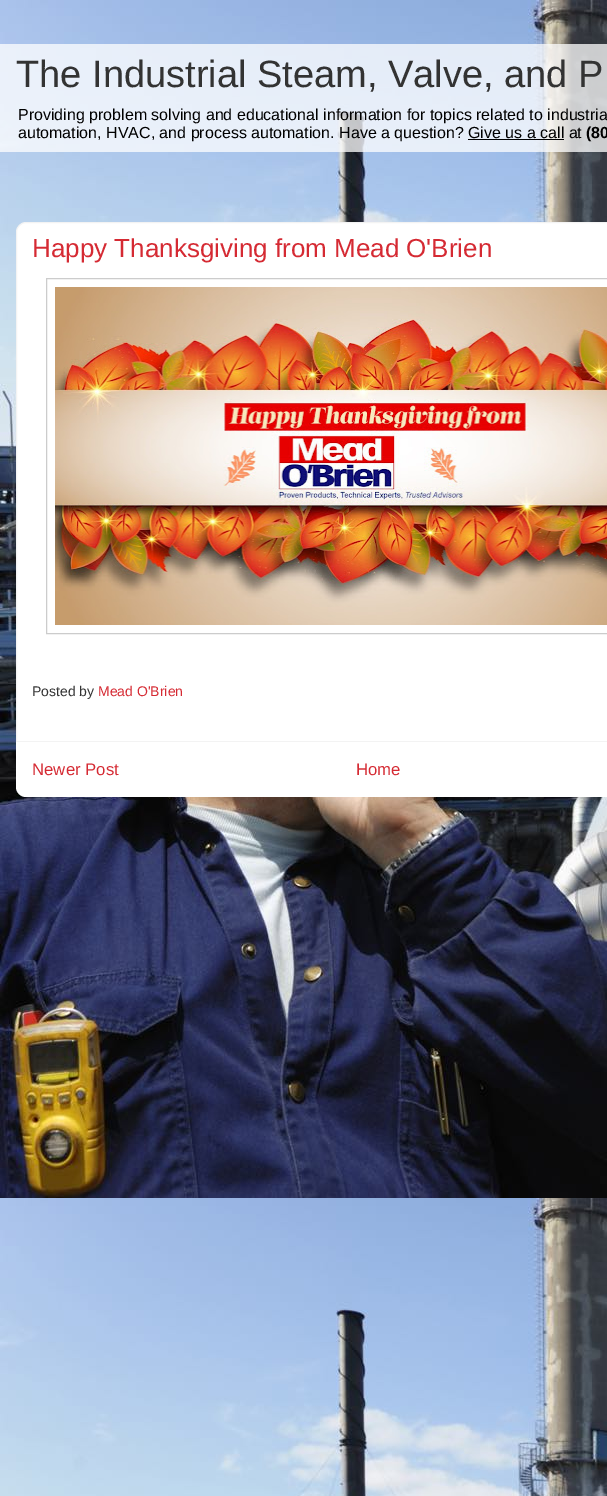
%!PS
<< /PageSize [607 1496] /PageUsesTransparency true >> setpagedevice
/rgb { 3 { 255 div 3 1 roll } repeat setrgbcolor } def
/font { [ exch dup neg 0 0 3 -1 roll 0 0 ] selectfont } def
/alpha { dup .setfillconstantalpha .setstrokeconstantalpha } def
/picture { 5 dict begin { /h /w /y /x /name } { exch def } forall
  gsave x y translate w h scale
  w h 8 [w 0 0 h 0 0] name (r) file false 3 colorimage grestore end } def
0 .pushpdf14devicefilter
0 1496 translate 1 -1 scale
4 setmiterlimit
255 255 255 rgb
0 0 607 1496 rectfill
(img/1.rgb) 0 0 607 1496 picture
0.75 alpha
0 44 607 108 rectfill
1 alpha
0 0 0 rgb
468 139 96 1 rectfill
255 255 255 rgb
26 222.5 moveto 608 222.5 lineto 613 222.5 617.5 227 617.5 232 curveto 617.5 741.5 lineto 16.5 741.5 lineto 16.5 232 lineto 16.5 227 21 222.5 26 222.5 curveto closepath gsave fill grestore
243 243 243 rgb
stroke
204 204 204 rgb
46.5 278.5 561 355 rectstroke
(img/2.rgb) 55 287 552 338 picture
255 255 255 rgb
16 742 moveto 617 742 lineto 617 787 lineto 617 792.5 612.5 797 607 797 curveto 26 797 lineto 20.5 797 16 792.5 16 787 curveto closepath fill
/LiberationSans-Regular 38 font
51 51 51 rgb
16 87 moveto (The Industrial Steam, Valve, and P) show
/LiberationSans-Regular 16 font
0 0 0 rgb
18 120 moveto (Providing problem solving and educational information for topics related to industria) show
18 138 moveto (automation, HVAC, and process automation. Have a question? Give us a call at) show
/LiberationSans-Bold 16 font
586 138 moveto (\(80) show
/LiberationSans-Regular 26 font
213 42 51 rgb
32 257 moveto (Happy Thanksgiving from Mead O'Brien) show
/LiberationSans-Regular 14 font
51 51 51 rgb
32 696 moveto (Posted by) show
213 42 51 rgb
98 696 moveto (Mead O'Brien) show
/LiberationSans-Regular 16.75 font
32 775 moveto (Newer Post) show
356 775 moveto (Home) show
.poppdf14devicefilter showpage
